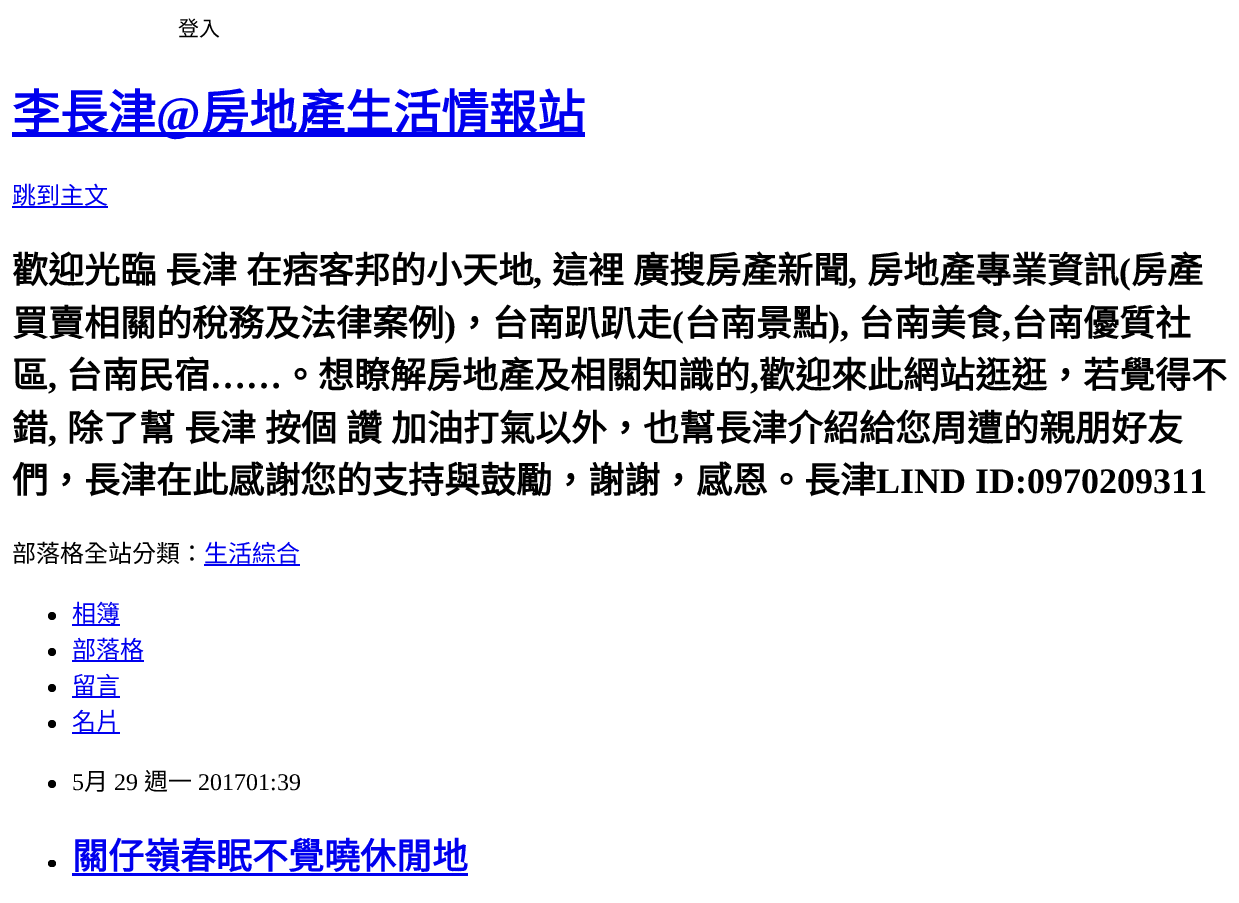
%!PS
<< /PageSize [1239 903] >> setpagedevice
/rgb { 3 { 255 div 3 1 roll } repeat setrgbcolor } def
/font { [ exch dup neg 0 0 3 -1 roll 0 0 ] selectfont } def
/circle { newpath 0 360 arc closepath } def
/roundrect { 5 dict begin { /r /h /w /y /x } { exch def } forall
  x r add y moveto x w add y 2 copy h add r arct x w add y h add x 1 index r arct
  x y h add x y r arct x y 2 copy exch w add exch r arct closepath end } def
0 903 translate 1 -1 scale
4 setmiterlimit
255 255 255 rgb
0 0 1239 903 rectfill
[
  [12 132 573 5 0 0 238]
  [12 206 96 2 0 0 238]
  [204 564 96 2 0 0 238]
] { aload pop rgb rectfill } forall
0 0 0 rgb
52 616 4 circle fill
0 0 238 rgb
72 624 48 2 rectfill
0 0 0 rgb
52 652 4 circle fill
0 0 238 rgb
72 660 72 2 rectfill
0 0 0 rgb
52 688 4 circle fill
0 0 238 rgb
72 696 48 2 rectfill
0 0 0 rgb
52 724 4 circle fill
0 0 238 rgb
72 732 48 2 rectfill
0 0 0 rgb
52 784 4 circle fill
48 860 8 7 3.5 roundrect fill
0 0 238 rgb
72 873 396 3 rectfill
/NotoSansCJKTC-Regular 21 font
0 0 0 rgb
178 36 moveto (登入) show
/NotoSansCJKTC-Bold 48 font
0 0 238 rgb
12 130 moveto (李長津) show
/LiberationSerif-Bold 48 font
156 130 moveto (@) show
/NotoSansCJKTC-Bold 48 font
201 130 moveto (房地產生活情報站) show
/NotoSansCJKTC-Regular 24 font
12 204 moveto (跳到主文) show
/NotoSansCJKTC-Bold 36 font
0 0 0 rgb
12 283 moveto 1 0 32 (歡迎光臨 長津 在痞客邦的小天地) widthshow
/LiberationSerif-Bold 36 font
533 283 moveto (,) show
/NotoSansCJKTC-Bold 36 font
552 283 moveto 1 0 32 (這裡 廣搜房產新聞) widthshow
/LiberationSerif-Bold 36 font
848 283 moveto (,) show
/NotoSansCJKTC-Bold 36 font
867 283 moveto (房地產專業資訊) show
/LiberationSerif-Bold 36 font
1119 283 moveto (\() show
/NotoSansCJKTC-Bold 36 font
1131 283 moveto (房產) show
12 336 moveto (買賣相關的稅務及法律案例) show
/LiberationSerif-Bold 36 font
444 336 moveto (\)) show
/NotoSansCJKTC-Bold 36 font
456 336 moveto (，台南趴趴走) show
/LiberationSerif-Bold 36 font
672 336 moveto (\() show
/NotoSansCJKTC-Bold 36 font
684 336 moveto (台南景點) show
/LiberationSerif-Bold 36 font
828 336 moveto (\),) show
/NotoSansCJKTC-Bold 36 font
858 336 moveto (台南美食) show
/LiberationSerif-Bold 36 font
1002 336 moveto (,) show
/NotoSansCJKTC-Bold 36 font
1011 336 moveto (台南優質社) show
12 388 moveto (區) show
/LiberationSerif-Bold 36 font
48 388 moveto (,) show
/NotoSansCJKTC-Bold 36 font
66 388 moveto (台南民宿) show
/LiberationSerif-Bold 36 font
210 388 moveto (……) show
/NotoSansCJKTC-Bold 36 font
282 388 moveto (。想瞭解房地產及相關知識的) show
/LiberationSerif-Bold 36 font
750 388 moveto (,) show
/NotoSansCJKTC-Bold 36 font
759 388 moveto (歡迎來此網站逛逛，若覺得不) show
12 441 moveto (錯) show
/LiberationSerif-Bold 36 font
48 441 moveto (,) show
/NotoSansCJKTC-Bold 36 font
67 441 moveto 1 0 32 (除了幫 長津 按個 讚 加油打氣以外，也幫長津介紹給您周遭的親朋好友) widthshow
12 493 moveto (們，長津在此感謝您的支持與鼓勵，謝謝，感恩。長津) show
/LiberationSerif-Bold 36 font
876 493 moveto (LIND ID:0970209311) show
/NotoSansCJKTC-Regular 24 font
12 562 moveto (部落格全站分類：) show
0 0 238 rgb
[
  [(生活綜合) 204 562]
  [(相簿) 72 622]
  [(部落格) 72 658]
  [(留言) 72 694]
  [(名片) 72 730]
] { aload pop moveto show } forall
/LiberationSerif-Regular 24 font
0 0 0 rgb
72 790 moveto (5) show
/NotoSansCJKTC-Regular 24 font
84 790 moveto (月) show
/LiberationSerif-Regular 24 font
114 790 moveto (29) show
/NotoSansCJKTC-Regular 24 font
144 790 moveto (週一) show
/LiberationSerif-Regular 24 font
198 790 moveto (201701:39) show
/NotoSansCJKTC-Bold 36 font
0 0 238 rgb
72 869 moveto (關仔嶺春眠不覺曉休閒地) show
showpage
